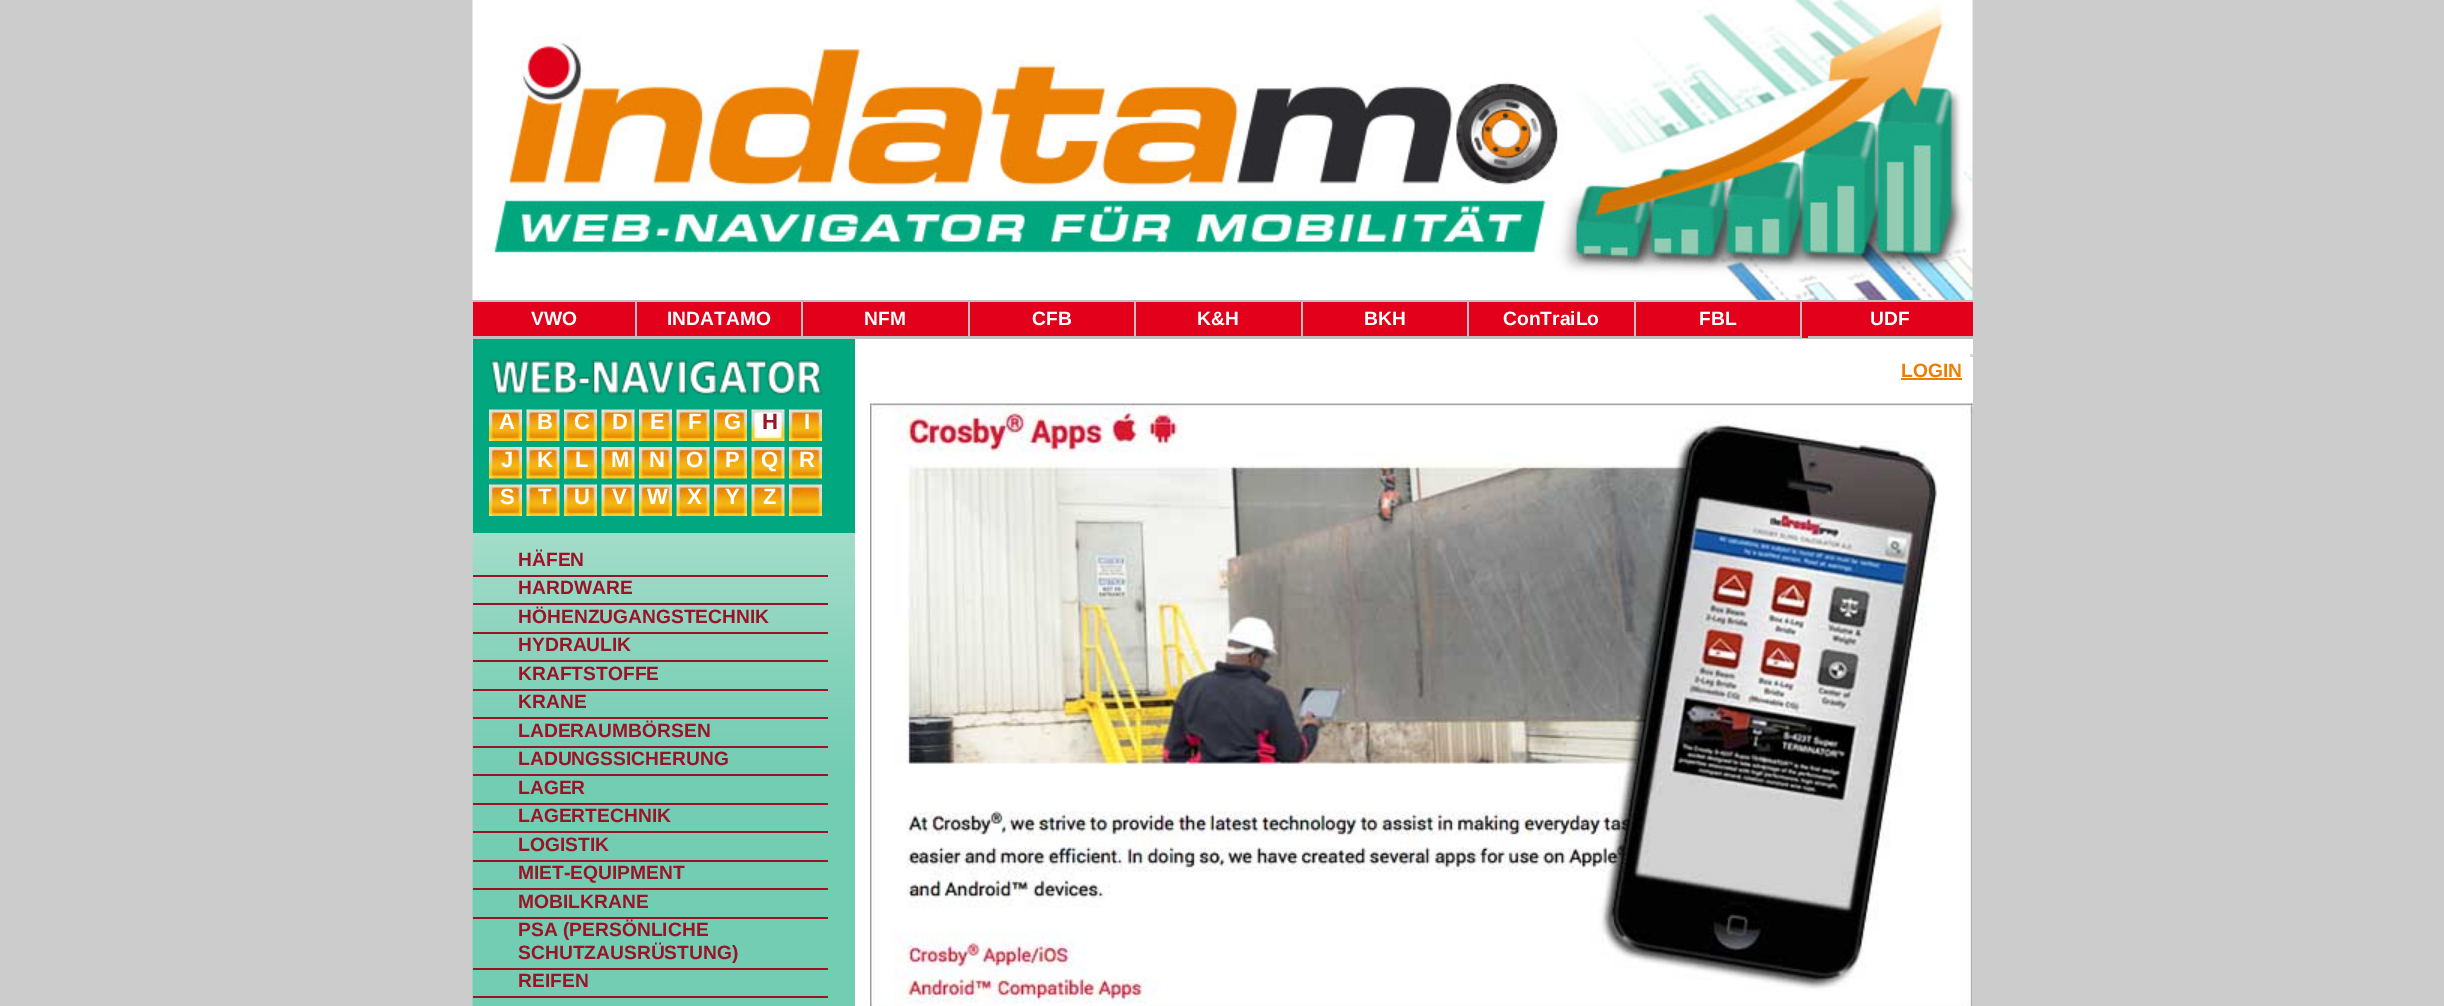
%!PS
<< /PageSize [2444 1006] >> setpagedevice
/rgb { 3 { 255 div 3 1 roll } repeat setrgbcolor } def
/font { [ exch dup neg 0 0 3 -1 roll 0 0 ] selectfont } def
/picture { 5 dict begin { /h /w /y /x /name } { exch def } forall
  gsave x y translate w h scale
  w h 8 [w 0 0 h 0 0] name (r) file false 3 colorimage grestore end } def
0 1006 translate 1 -1 scale
4 setmiterlimit
204 204 204 rgb
0 0 2444 1006 rectfill
(img/1.rgb) 472 0 1501 300 picture
[
  [473 300 1500 2 192 192 192]
  [473 338 1500 1 192 192 192]
  [473 302 1500 36 226 0 26]
  [473 336 1161 2 192 192 192]
  [635 302 2 36 192 192 192]
  [801 302 2 36 192 192 192]
  [968 302 2 36 192 192 192]
  [1134 302 2 36 192 192 192]
  [1301 302 2 36 192 192 192]
  [1467 302 2 36 192 192 192]
  [1800 302 2 36 192 192 192]
  [1634 336 168 2 192 192 192]
  [1634 302 2 36 192 192 192]
  [1808 336 165 2 192 192 192]
  [855 339 1118 667 255 255 255]
  [1970 354 3 3 215 215 215]
  [1901 378 61 2 236 126 1]
] { aload pop rgb rectfill } forall
(img/2.rgb) 870 403 1103 603 picture
(img/3.rgb) 472 339 383 667 picture
0 167 127 rgb
473 339 382 194 rectfill
(img/4.rgb) 490 359 333 36 picture
(img/5.rgb) 489 409 33 32 picture
(img/6.rgb) 526 409 34 32 picture
(img/7.rgb) 564 409 33 32 picture
(img/6.rgb) 601 409 34 32 picture
(img/8.rgb) 639 409 33 32 picture
(img/6.rgb) 676 409 34 32 picture
(img/7.rgb) 714 409 33 32 picture
(img/9.rgb) 751 409 34 32 picture
(img/8.rgb) 789 409 33 32 picture
(img/10.rgb) 489 447 33 32 picture
(img/11.rgb) 526 447 34 32 picture
(img/12.rgb) 564 447 33 32 picture
(img/11.rgb) 601 447 34 32 picture
(img/13.rgb) 639 447 33 32 picture
(img/11.rgb) 676 447 34 32 picture
(img/12.rgb) 714 447 33 32 picture
(img/14.rgb) 751 447 34 32 picture
(img/13.rgb) 789 447 33 32 picture
(img/5.rgb) 489 484 33 32 picture
(img/6.rgb) 526 484 34 32 picture
(img/7.rgb) 564 484 33 32 picture
(img/6.rgb) 601 484 34 32 picture
(img/8.rgb) 639 484 33 32 picture
(img/6.rgb) 676 484 34 32 picture
(img/7.rgb) 714 484 33 32 picture
(img/15.rgb) 751 484 34 32 picture
(img/8.rgb) 789 484 33 32 picture
[
  [473 575 355 2 155 19 39]
  [473 603 355 2 155 19 39]
  [473 632 355 2 155 19 39]
  [473 660 355 2 155 19 39]
  [473 689 355 2 155 19 39]
  [473 717 355 2 155 19 39]
  [473 746 355 2 155 19 39]
  [473 774 355 2 155 19 39]
  [473 803 355 2 155 19 39]
  [473 831 355 2 155 19 39]
  [473 860 355 2 155 19 39]
  [473 888 355 2 155 19 39]
  [473 917 355 2 155 19 39]
  [473 968 355 2 155 19 39]
  [473 996 355 2 155 19 39]
] { aload pop rgb rectfill } forall
/LiberationSans-Bold 19.25 font
255 255 255 rgb
[
  [(VWO) 531 325]
  [(INDATAMO) 667 325]
  [(NFM) 864 325]
  [(CFB) 1032 325]
  [(K&H) 1197 325]
  [(BKH) 1364 325]
  [(ConTraiLo) 1503 325]
  [(FBL) 1699 325]
  [(UDF) 1870 325]
] { aload pop moveto show } forall
236 126 1 rgb
1901 377 moveto (LOGIN) show
/LiberationSans-Bold 22 font
255 255 255 rgb
[
  [(A) 499 429]
  [(B) 537 429]
  [(C) 574 429]
  [(D) 612 429]
  [(E) 650 429]
  [(F) 688 429]
  [(G) 724 429]
] { aload pop moveto show } forall
155 19 39 rgb
762 429 moveto (H) show
255 255 255 rgb
[
  [(I) 804 429]
  [(J) 501 467]
  [(K) 537 467]
  [(L) 575 467]
  [(M) 611 467]
  [(N) 649 467]
  [(O) 686 467]
  [(P) 725 467]
  [(Q) 761 467]
  [(R) 799 467]
  [(S) 500 504]
  [(T) 538 504]
  [(U) 574 504]
  [(V) 612 504]
  [(W) 647 504]
  [(X) 687 504]
  [(Y) 725 504]
  [(Z) 763 504]
] { aload pop moveto show } forall
/LiberationSans-Bold 19.25 font
155 19 39 rgb
[
  [(HÄFEN) 518 566]
  [(HARDWARE) 518 594]
  [(HÖHENZUGANGSTECHNIK) 518 623]
  [(HYDRAULIK) 518 651]
  [(KRAFTSTOFFE) 518 680]
  [(KRANE) 518 708]
  [(LADERAUMBÖRSEN) 518 737]
  [(LADUNGSSICHERUNG) 518 765]
  [(LAGER) 518 794]
  [(LAGERTECHNIK) 518 822]
  [(LOGISTIK) 518 851]
  [(MIET-EQUIPMENT) 518 879]
  [(MOBILKRANE) 518 908]
  [(PSA \(PERSÖNLICHE) 518 936]
  [(SCHUTZAUSRÜSTUNG\)) 518 959]
  [(REIFEN) 518 987]
] { aload pop moveto show } forall
showpage
